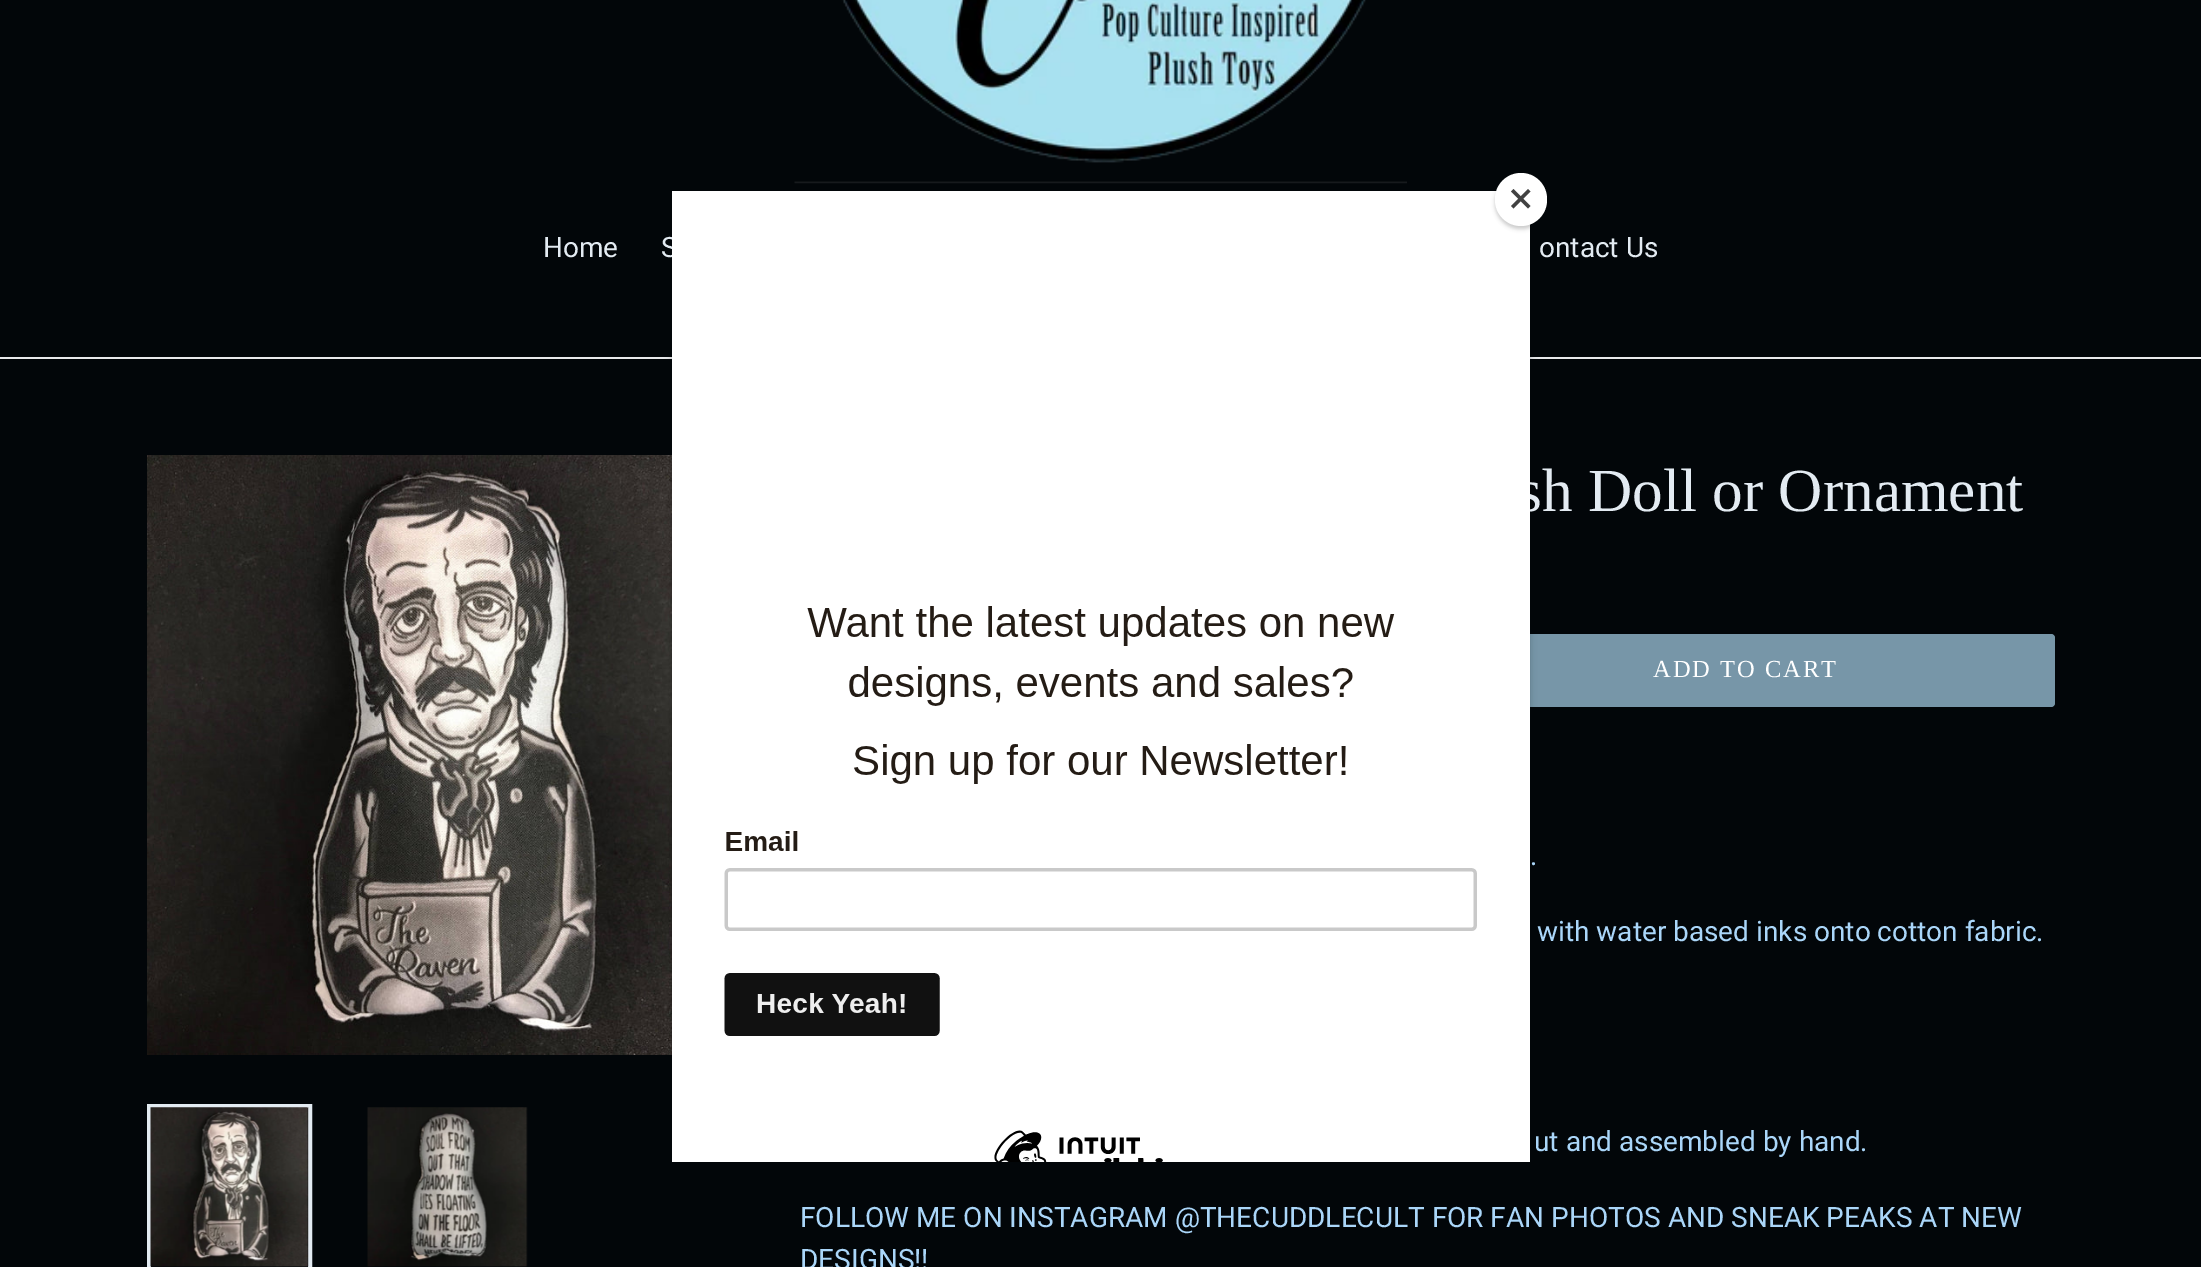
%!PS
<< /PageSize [2201 1267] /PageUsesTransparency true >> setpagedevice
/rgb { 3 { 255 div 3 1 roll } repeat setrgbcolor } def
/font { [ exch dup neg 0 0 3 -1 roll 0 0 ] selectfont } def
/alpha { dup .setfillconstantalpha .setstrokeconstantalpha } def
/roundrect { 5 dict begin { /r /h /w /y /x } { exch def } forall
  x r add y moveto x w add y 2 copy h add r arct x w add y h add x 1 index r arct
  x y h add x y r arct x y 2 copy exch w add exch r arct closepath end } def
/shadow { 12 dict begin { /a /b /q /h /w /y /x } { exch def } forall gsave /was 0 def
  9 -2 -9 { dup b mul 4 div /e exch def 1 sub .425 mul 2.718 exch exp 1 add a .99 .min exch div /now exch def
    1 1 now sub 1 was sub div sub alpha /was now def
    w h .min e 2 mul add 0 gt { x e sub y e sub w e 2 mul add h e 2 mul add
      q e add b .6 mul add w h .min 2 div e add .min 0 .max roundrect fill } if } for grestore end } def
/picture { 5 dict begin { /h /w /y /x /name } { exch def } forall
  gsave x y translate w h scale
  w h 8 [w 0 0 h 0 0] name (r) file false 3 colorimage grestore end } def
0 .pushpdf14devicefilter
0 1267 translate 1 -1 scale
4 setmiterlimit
2 6 9 rgb
0 0 2201 1267 rectfill
(img/2.rgb) 794 0 613 184 picture
232 233 235 rgb
0 357 2201 2 rectfill
(img/3.rgb) 147 455 525 600 picture
119 150 168 rgb
1437 634 618 73 4 roundrect fill
0 0 0 rgb
672 194 858 972 0 3.5 0.2 shadow
227 235 242 rgb
4 setlinewidth
149 1106 161 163 rectstroke
(img/4.rgb) 150 1107 159 160 picture
(img/5.rgb) 367 1107 161 160 picture
/Roboto-Regular 28 font
[
  [(Home) 543 257]
  [(S) 661 257]
  [(ontact Us) 1539 257]
] { aload pop moveto show } forall
/LiberationSerif-Regular 61.25 font
1518 511 moveto (sh Doll or Ornament) show
(img/1.rgb) 672 191 858 971 picture
0 0 0 rgb
1495 177 52 52 26 2 0.2 shadow
255 255 255 rgb
1495 173 52 53 26 roundrect fill
65 65 65 rgb
1528 189 moveto 1530.5 191.5 lineto 1513.5 208.5 lineto 1511 206 lineto closepath fill
1511 191.5 moveto 1513.5 189 lineto 1530.5 206 lineto 1528 208.5 lineto closepath fill
/LiberationSerif-Regular 24.5 font
255 255 255 rgb
1653 677 moveto 2 0 (ADD TO CART) ashow
/Roboto-Regular 28 font
170 214 249 rgb
[
  [(.) 1530 865]
  [(with water based inks onto cotton fabric.) 1537 941]
  [(ut and assembled by hand.) 1534 1151]
  [(FOLLOW ME ON INSTAGRAM @THECUDDLECULT FOR FAN PHOTOS AND SNEAK PEAKS AT NEW) 800 1227]
  [(DESIGNS!!) 800 1269]
] { aload pop moveto show } forall
.poppdf14devicefilter showpage
